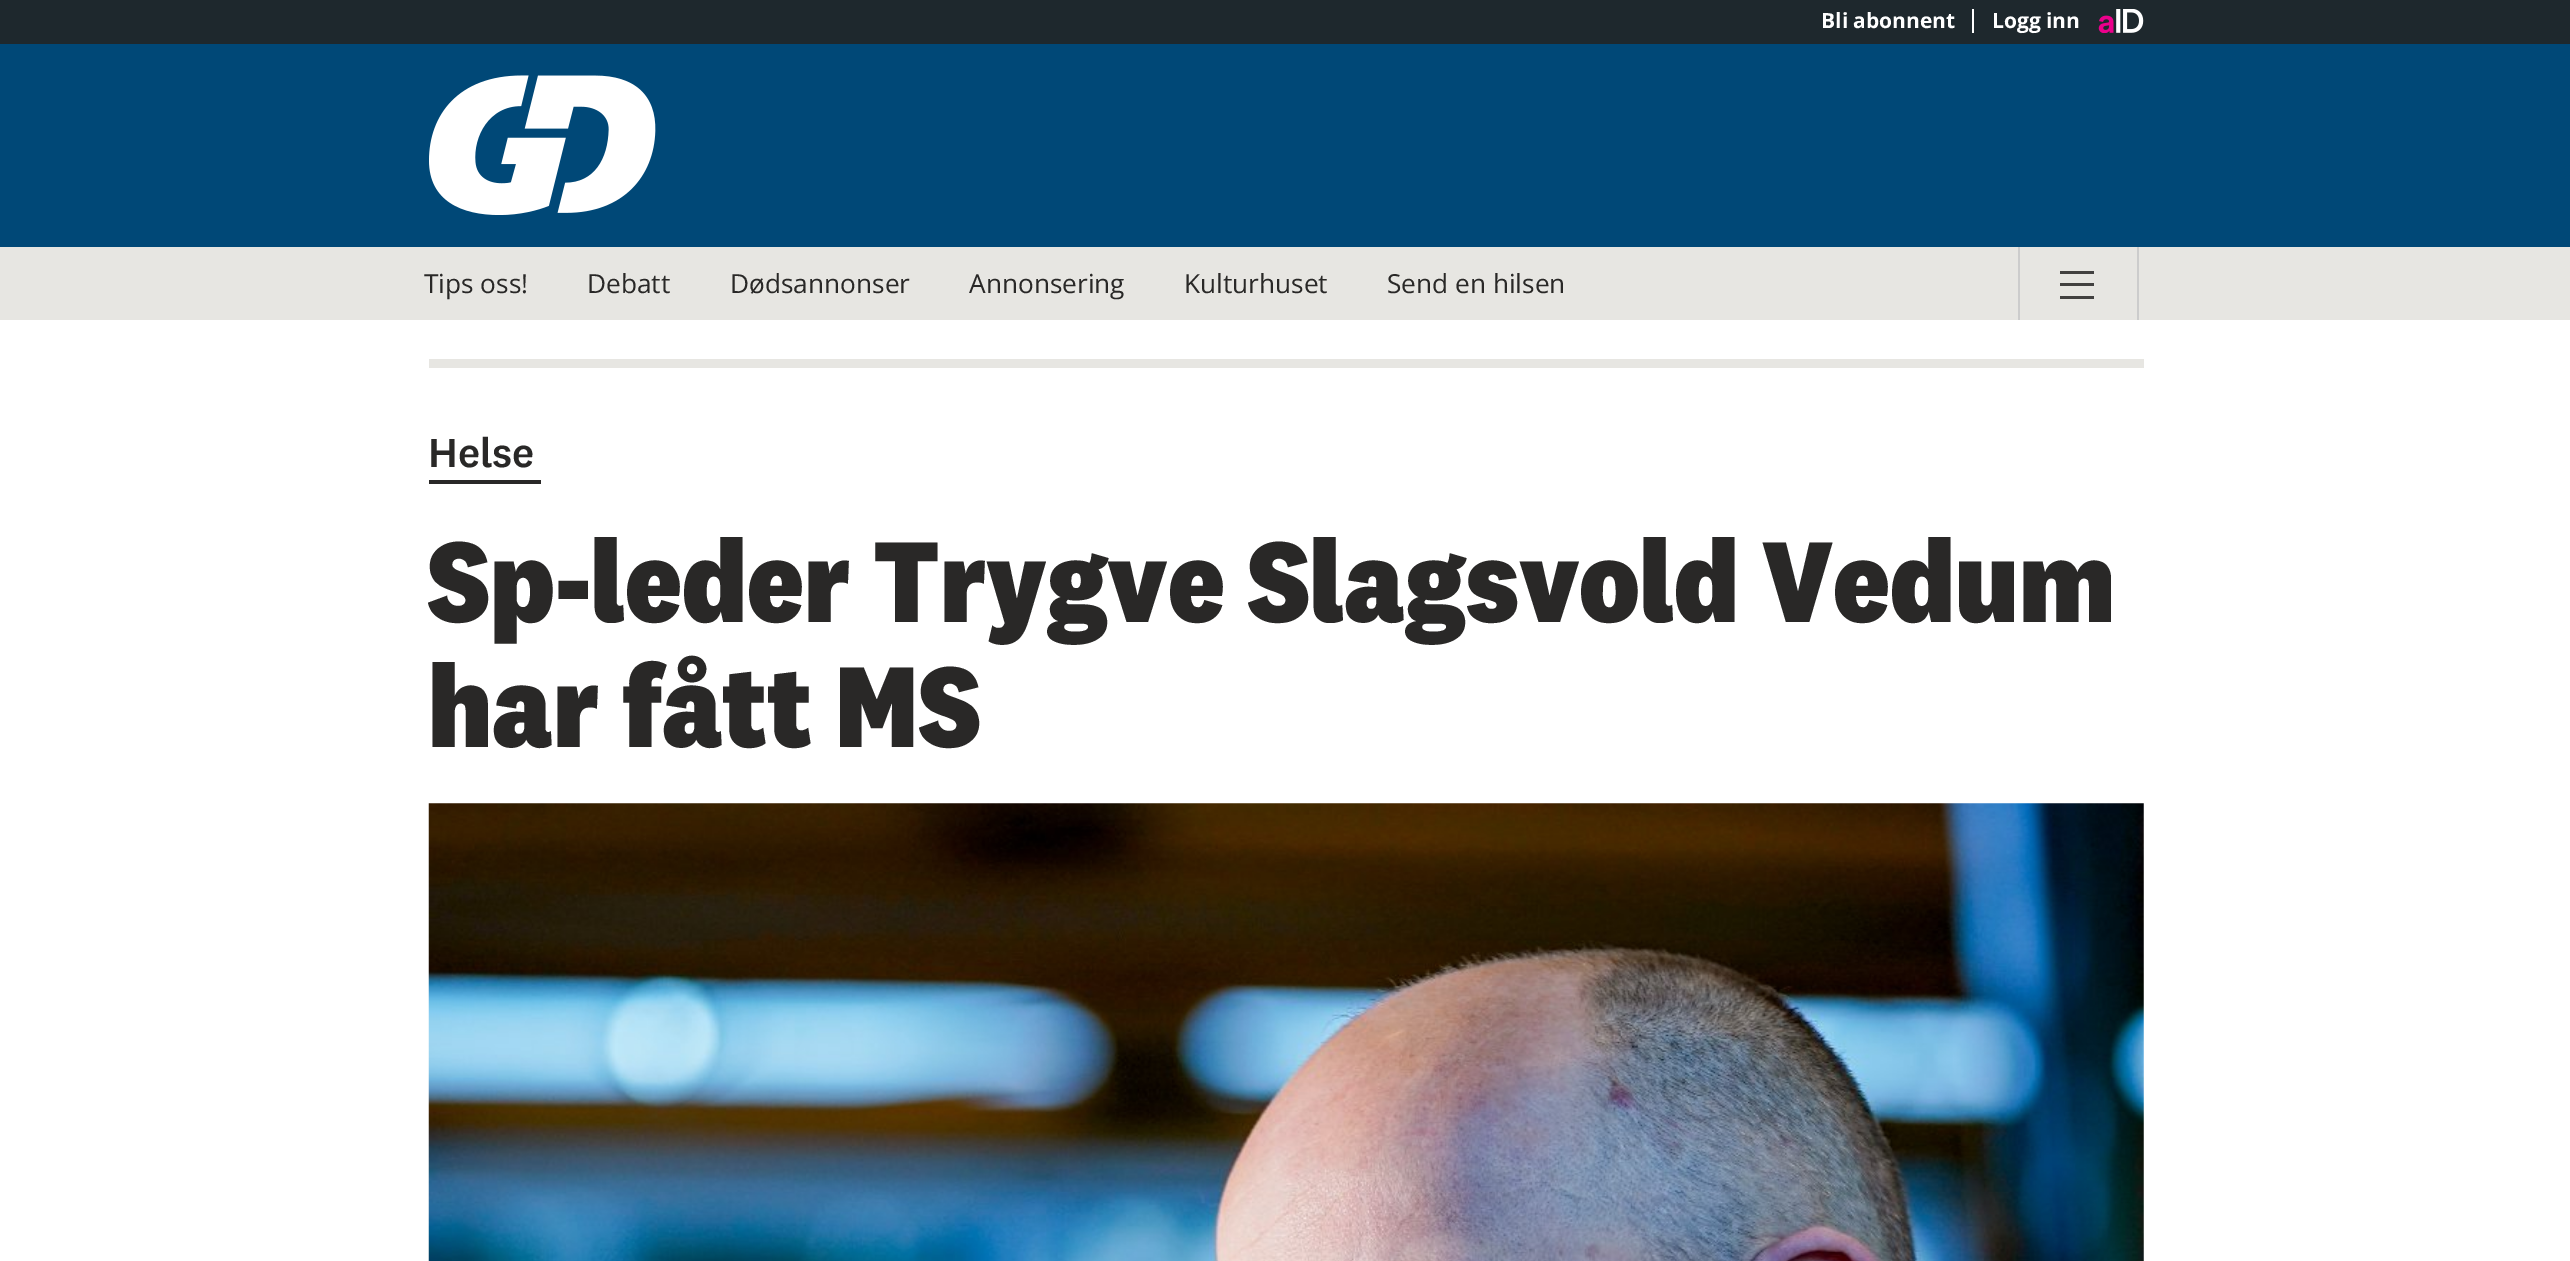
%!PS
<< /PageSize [2570 1261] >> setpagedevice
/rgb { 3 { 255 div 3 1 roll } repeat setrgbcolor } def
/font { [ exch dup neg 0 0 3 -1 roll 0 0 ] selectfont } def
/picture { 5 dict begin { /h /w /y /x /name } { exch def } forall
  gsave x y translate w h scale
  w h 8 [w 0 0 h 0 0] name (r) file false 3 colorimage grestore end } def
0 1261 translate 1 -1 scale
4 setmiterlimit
255 255 255 rgb
0 0 2570 1261 rectfill
30 40 45 rgb
0 0 2570 44 rectfill
255 255 255 rgb
1972 9 2 24 rectfill
(img/1.rgb) 2098 9 46 24 picture
0 72 119 rgb
0 44 2570 203 rectfill
(img/2.rgb) 429 75 227 140 picture
[
  [0 247 2570 73 231 230 226]
  [2137 247 2 73 204 204 204]
  [2018 247 2 73 204 204 204]
  [2060 271 34 3 66 65 64]
  [2060 283 34 3 66 65 64]
  [2060 296 34 3 66 65 64]
  [429 359 1715 9 231 230 226]
  [429 480 112 4 41 40 39]
] { aload pop rgb rectfill } forall
(img/3.rgb) 428 803 1716 458 picture
/OpenSans-Bold 21 font
255 255 255 rgb
1821 28 moveto (Bli abonnent) show
1992 28 moveto (Logg inn) show
/OpenSans-Regular 26.25 font
41 40 39 rgb
[
  [(Tips oss!) 424 293]
  [(Debatt) 587 293]
  [(Dødsannonser) 730 293]
  [(Annonsering) 969 293]
  [(Kulturhuset) 1184 293]
  [(Send en hilsen) 1387 293]
] { aload pop moveto show } forall
/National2-Medium 42 font
428 467 moveto -0.25 0 (Helse) ashow
/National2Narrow-ExtraBold 119 font
428 622 moveto (Sp-leder Trygve Slagsvold Vedum) show
428 747 moveto (har fått MS) show
showpage
